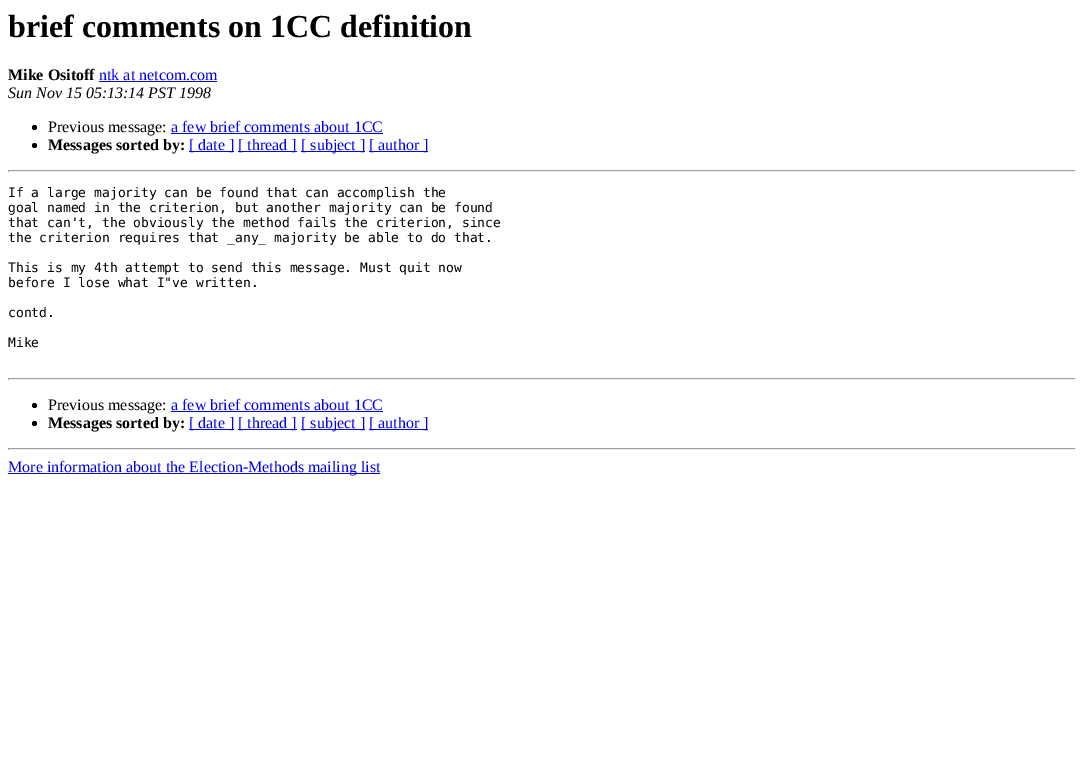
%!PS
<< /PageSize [1084 762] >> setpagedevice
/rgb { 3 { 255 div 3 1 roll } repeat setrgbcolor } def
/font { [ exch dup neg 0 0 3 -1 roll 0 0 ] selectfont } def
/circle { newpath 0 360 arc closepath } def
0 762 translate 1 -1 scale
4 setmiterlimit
255 255 255 rgb
0 0 1084 762 rectfill
0 0 238 rgb
99 81 118 1 rectfill
0 0 0 rgb
34.5 127.5 2.5 circle fill
0 0 238 rgb
171 133 212 1 rectfill
0 0 0 rgb
34.5 145.5 2.5 circle fill
[
  [189 151 45 1 0 0 238]
  [238 151 59 1 0 0 238]
  [301 151 64 1 0 0 238]
  [369 151 59 1 0 0 238]
  [8 170 1068 1 159 159 159]
  [1075 170 1 2 238 238 238]
  [8 171 1068 1 238 238 238]
  [8 170 1 2 159 159 159]
  [8 378 1068 1 159 159 159]
  [1075 378 1 2 238 238 238]
  [8 379 1068 1 238 238 238]
  [8 378 1 2 159 159 159]
] { aload pop rgb rectfill } forall
0 0 0 rgb
34.5 405.5 2.5 circle fill
0 0 238 rgb
171 411 212 1 rectfill
0 0 0 rgb
34.5 423.5 2.5 circle fill
[
  [189 429 45 1 0 0 238]
  [238 429 59 1 0 0 238]
  [301 429 64 1 0 0 238]
  [369 429 59 1 0 0 238]
  [8 448 1068 1 159 159 159]
  [1075 448 1 2 238 238 238]
  [8 449 1068 1 238 238 238]
  [8 448 1 2 159 159 159]
  [8 473 372 1 0 0 238]
] { aload pop rgb rectfill } forall
/LiberationSerif-Bold 32 font
0 0 0 rgb
8 37 moveto (brief comments on 1CC definition) show
/LiberationSerif-Bold 16 font
8 80 moveto (Mike Ositoff) show
/LiberationSerif-Regular 16 font
0 0 238 rgb
99 80 moveto (ntk at netcom.com) show
/LiberationSerif-Italic 16 font
0 0 0 rgb
8 98 moveto (Sun Nov 15 05:13:14 PST 1998) show
/LiberationSerif-Regular 16 font
48 132 moveto (Previous message:) show
0 0 238 rgb
171 132 moveto (a few brief comments about 1CC) show
/LiberationSerif-Bold 16 font
0 0 0 rgb
48 150 moveto (Messages sorted by:) show
/LiberationSerif-Regular 16 font
0 0 238 rgb
[
  [([ date ]) 189 150]
  [([ thread ]) 238 150]
  [([ subject ]) 301 150]
  [([ author ]) 369 150]
] { aload pop moveto show } forall
/DejaVuSansMono-Regular 13 font
0 0 0 rgb
[
  [(If a large majority can be found that can accomplish the) 8 197]
  [(goal named in the criterion, but another majority can be found) 8 212]
  [(that can't, the obviously the method fails the criterion, since) 8 227]
  [(the criterion requires that _any_ majority be able to do that.) 8 242]
  [(This is my 4th attempt to send this message. Must quit now) 8 272]
  [(before I lose what I"ve written.) 8 287]
  [(contd.) 8 317]
  [(Mike) 8 347]
] { aload pop moveto show } forall
/LiberationSerif-Regular 16 font
48 410 moveto (Previous message:) show
0 0 238 rgb
171 410 moveto (a few brief comments about 1CC) show
/LiberationSerif-Bold 16 font
0 0 0 rgb
48 428 moveto (Messages sorted by:) show
/LiberationSerif-Regular 16 font
0 0 238 rgb
[
  [([ date ]) 189 428]
  [([ thread ]) 238 428]
  [([ subject ]) 301 428]
  [([ author ]) 369 428]
  [(More information about the Election-Methods mailing list) 8 472]
] { aload pop moveto show } forall
showpage
